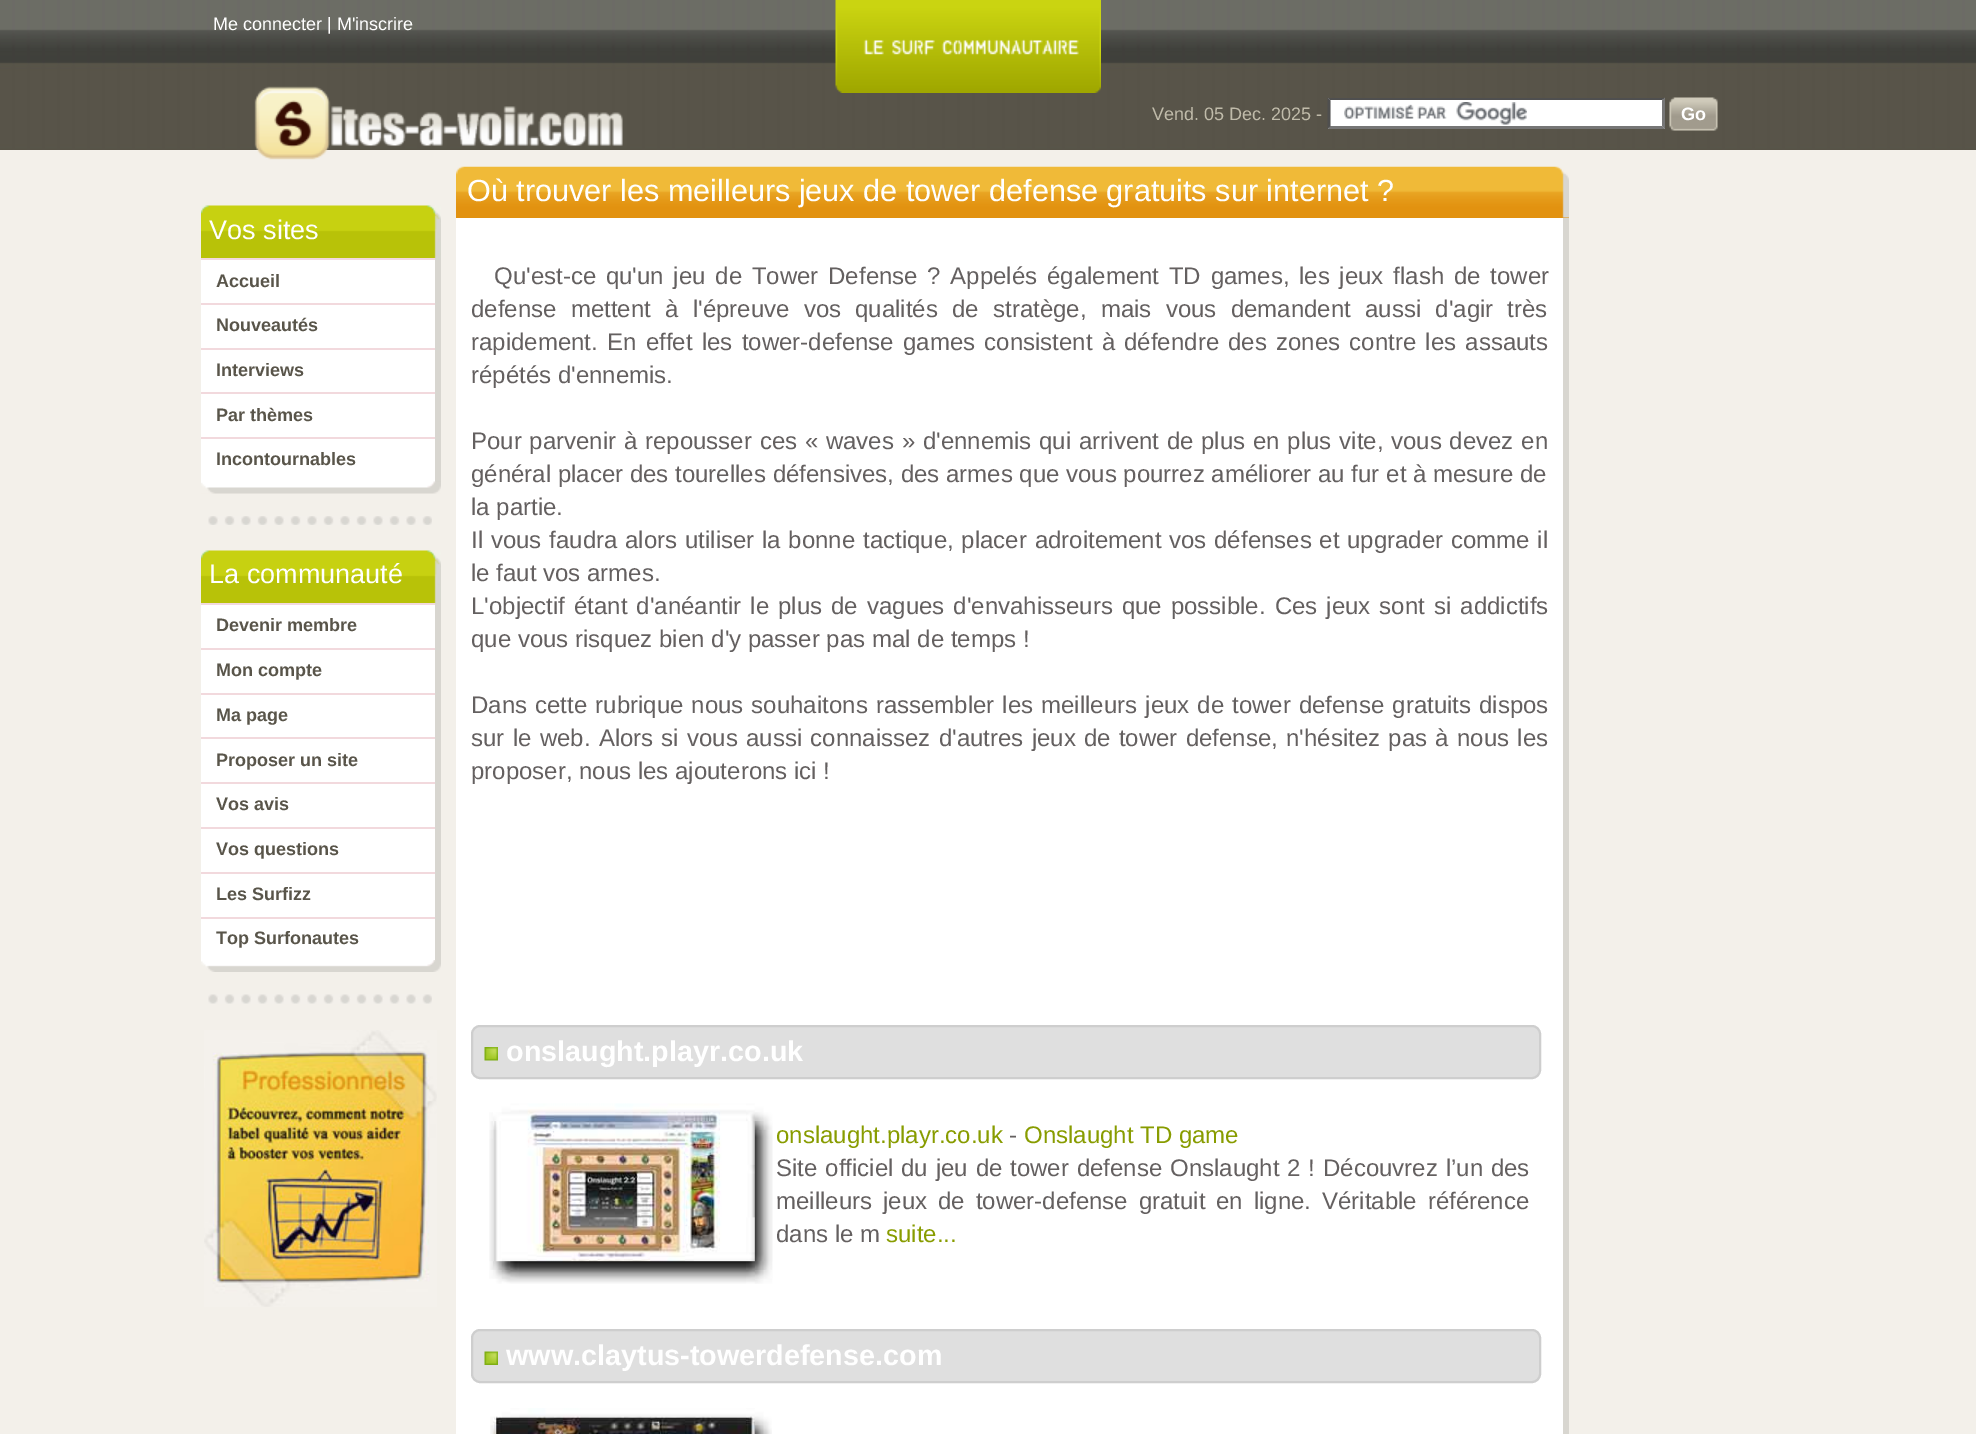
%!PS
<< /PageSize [1976 1434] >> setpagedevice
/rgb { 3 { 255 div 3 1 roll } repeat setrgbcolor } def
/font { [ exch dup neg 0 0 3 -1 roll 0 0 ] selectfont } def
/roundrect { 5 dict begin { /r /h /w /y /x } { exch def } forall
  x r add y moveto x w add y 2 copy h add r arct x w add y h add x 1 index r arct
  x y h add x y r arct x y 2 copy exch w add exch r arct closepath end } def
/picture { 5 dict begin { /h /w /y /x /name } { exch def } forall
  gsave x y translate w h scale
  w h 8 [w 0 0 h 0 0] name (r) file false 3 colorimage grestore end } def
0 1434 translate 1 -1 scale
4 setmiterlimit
243 240 234 rgb
0 0 1976 1434 rectfill
(img/1.rgb) 0 0 1976 150 picture
(img/2.rgb) 835 0 266 93 picture
(img/3.rgb) 254 86 369 74 picture
255 255 255 rgb
1328 98 337 31 rectfill
(img/4.rgb) 1344 102 183 23 picture
79 79 79 rgb
1328 98 moveto 1665 98 lineto 1662 100 lineto 1330 100 lineto closepath fill
118 118 118 rgb
1665 97.5 moveto 1665 129 lineto 1662 126 lineto 1662 100.5 lineto closepath fill
1665 129 moveto 1328 129 lineto 1330 126 lineto 1662 126 lineto closepath fill
79 79 79 rgb
1327.5 129 moveto 1327.5 97.5 lineto 1330.5 100.5 lineto 1330.5 126 lineto closepath fill
(img/5.rgb) 1669 97 49 34 picture
(img/6.rgb) 201 205 240 53 picture
[
  [435 258 6 224 216 214 208]
  [201 260 234 43 255 255 255]
  [201 258 234 2 242 217 221]
  [201 305 234 43 255 255 255]
  [201 303 234 2 242 217 221]
  [201 350 234 42 255 255 255]
  [201 348 234 2 242 217 221]
  [201 394 234 43 255 255 255]
  [201 392 234 2 242 217 221]
  [201 439 234 43 255 255 255]
  [201 437 234 2 242 217 221]
] { aload pop rgb rectfill } forall
(img/7.rgb) 201 481 240 13 picture
(img/8.rgb) 208 516 224 9 picture
(img/6.rgb) 201 550 240 53 picture
[
  [435 603 6 357 216 214 208]
  [201 605 234 43 255 255 255]
  [201 603 234 2 242 217 221]
  [201 650 234 43 255 255 255]
  [201 648 234 2 242 217 221]
  [201 695 234 42 255 255 255]
  [201 693 234 2 242 217 221]
  [201 739 234 43 255 255 255]
  [201 737 234 2 242 217 221]
  [201 784 234 43 255 255 255]
  [201 782 234 2 242 217 221]
  [201 829 234 43 255 255 255]
  [201 827 234 2 242 217 221]
  [201 874 234 43 255 255 255]
  [201 872 234 2 242 217 221]
  [201 919 234 41 255 255 255]
  [201 917 234 2 242 217 221]
] { aload pop rgb rectfill } forall
(img/9.rgb) 201 960 240 12 picture
(img/10.rgb) 208 994 224 10 picture
(img/11.rgb) 204 1030 233 277 picture
226 146 16 rgb
456 217 1113 1 rectfill
(img/12.rgb) 456 166 1113 52 picture
255 255 255 rgb
456 218 1107 1216 rectfill
216 214 208 rgb
1563 218 6 1216 rectfill
223 223 223 rgb
472 1026 1068 52 8 roundrect gsave fill grestore
206 206 206 rgb
2 setlinewidth
stroke
(img/13.rgb) 484 1047 14 14 picture
(img/14.rgb) 489 1103 284 181 picture
223 223 223 rgb
472 1330 1068 52 8 roundrect gsave fill grestore
206 206 206 rgb
stroke
(img/15.rgb) 484 1351 14 14 picture
(img/16.rgb) 490 1408 282 26 picture
/LiberationSans-Regular 18 font
255 255 255 rgb
213 30 moveto (Me connecter | M'inscrire) show
192 187 170 rgb
1152 120 moveto (Vend. 05 Dec. 2025 -) show
/LiberationSans-Bold 18 font
255 255 255 rgb
1681 120 moveto (Go) show
/LiberationSans-Regular 27 font
209 239 moveto (Vos sites) show
/LiberationSans-Bold 18 font
89 85 74 rgb
[
  [(Accueil) 216 287]
  [(Nouveautés) 216 331]
  [(Interviews) 216 376]
  [(Par thèmes) 216 421]
  [(Incontournables) 216 465]
] { aload pop moveto show } forall
/LiberationSans-Regular 27 font
255 255 255 rgb
209 583 moveto (La communauté) show
/LiberationSans-Bold 18 font
89 85 74 rgb
[
  [(Devenir membre) 216 631]
  [(Mon compte) 216 676]
  [(Ma page) 216 721]
  [(Proposer un site) 216 766]
  [(Vos avis) 216 810]
  [(Vos questions) 216 855]
  [(Les Surfizz) 216 900]
  [(Top Surfonautes) 216 944]
] { aload pop moveto show } forall
/LiberationSans-Regular 30.6 font
255 255 255 rgb
467 201 moveto (Où trouver les meilleurs jeux de tower defense gratuits sur internet ?) show
/LiberationSans-Regular 24 font
100 96 96 rgb
494 284 moveto 3.1 0 32 (Qu'est-ce qu'un jeu de Tower Defense ? Appelés également TD games, les jeux flash de tower) widthshow
471 317 moveto 7.6 0 32 (defense mettent à l'épreuve vos qualités de stratège, mais vous demandent aussi d'agir très) widthshow
471 350 moveto 2.6 0 32 (rapidement. En effet les tower-defense games consistent à défendre des zones contre les assauts) widthshow
471 383 moveto (répétés d'ennemis.) show
471 449 moveto 1.1 0 32 (Pour parvenir à repousser ces « waves » d'ennemis qui arrivent de plus en plus vite, vous devez en) widthshow
471 482 moveto (général placer des tourelles défensives, des armes que vous pourrez améliorer au fur et à mesure de) show
471 515 moveto (la partie.) show
471 548 moveto 1.1 0 32 (Il vous faudra alors utiliser la bonne tactique, placer adroitement vos défenses et upgrader comme il) widthshow
471 581 moveto (le faut vos armes.) show
471 614 moveto 2.4 0 32 (L'objectif étant d'anéantir le plus de vagues d'envahisseurs que possible. Ces jeux sont si addictifs) widthshow
471 647 moveto (que vous risquez bien d'y passer pas mal de temps !) show
471 713 moveto 1.4 0 32 (Dans cette rubrique nous souhaitons rassembler les meilleurs jeux de tower defense gratuits dispos) widthshow
471 746 moveto 1.6 0 32 (sur le web. Alors si vous aussi connaissez d'autres jeux de tower defense, n'hésitez pas à nous les) widthshow
471 779 moveto (proposer, nous les ajouterons ici !) show
/LiberationSans-Bold 28.75 font
255 255 255 rgb
506 1061 moveto (onslaught.playr.co.uk) show
/LiberationSans-Regular 24 font
136 156 0 rgb
776 1143 moveto (onslaught.playr.co.uk) show
100 96 96 rgb
1009 1143 moveto (-) show
136 156 0 rgb
1024 1143 moveto (Onslaught TD game) show
100 96 96 rgb
776 1176 moveto 1.2 0 32 (Site officiel du jeu de tower defense Onslaught 2 ! Découvrez l’un des) widthshow
776 1209 moveto 4.25 0 32 (meilleurs jeux de tower-defense gratuit en ligne. Véritable référence) widthshow
776 1242 moveto (dans le m) show
136 156 0 rgb
886 1242 moveto (suite...) show
/LiberationSans-Bold 28.75 font
255 255 255 rgb
506 1365 moveto (www.claytus-towerdefense.com) show
showpage
